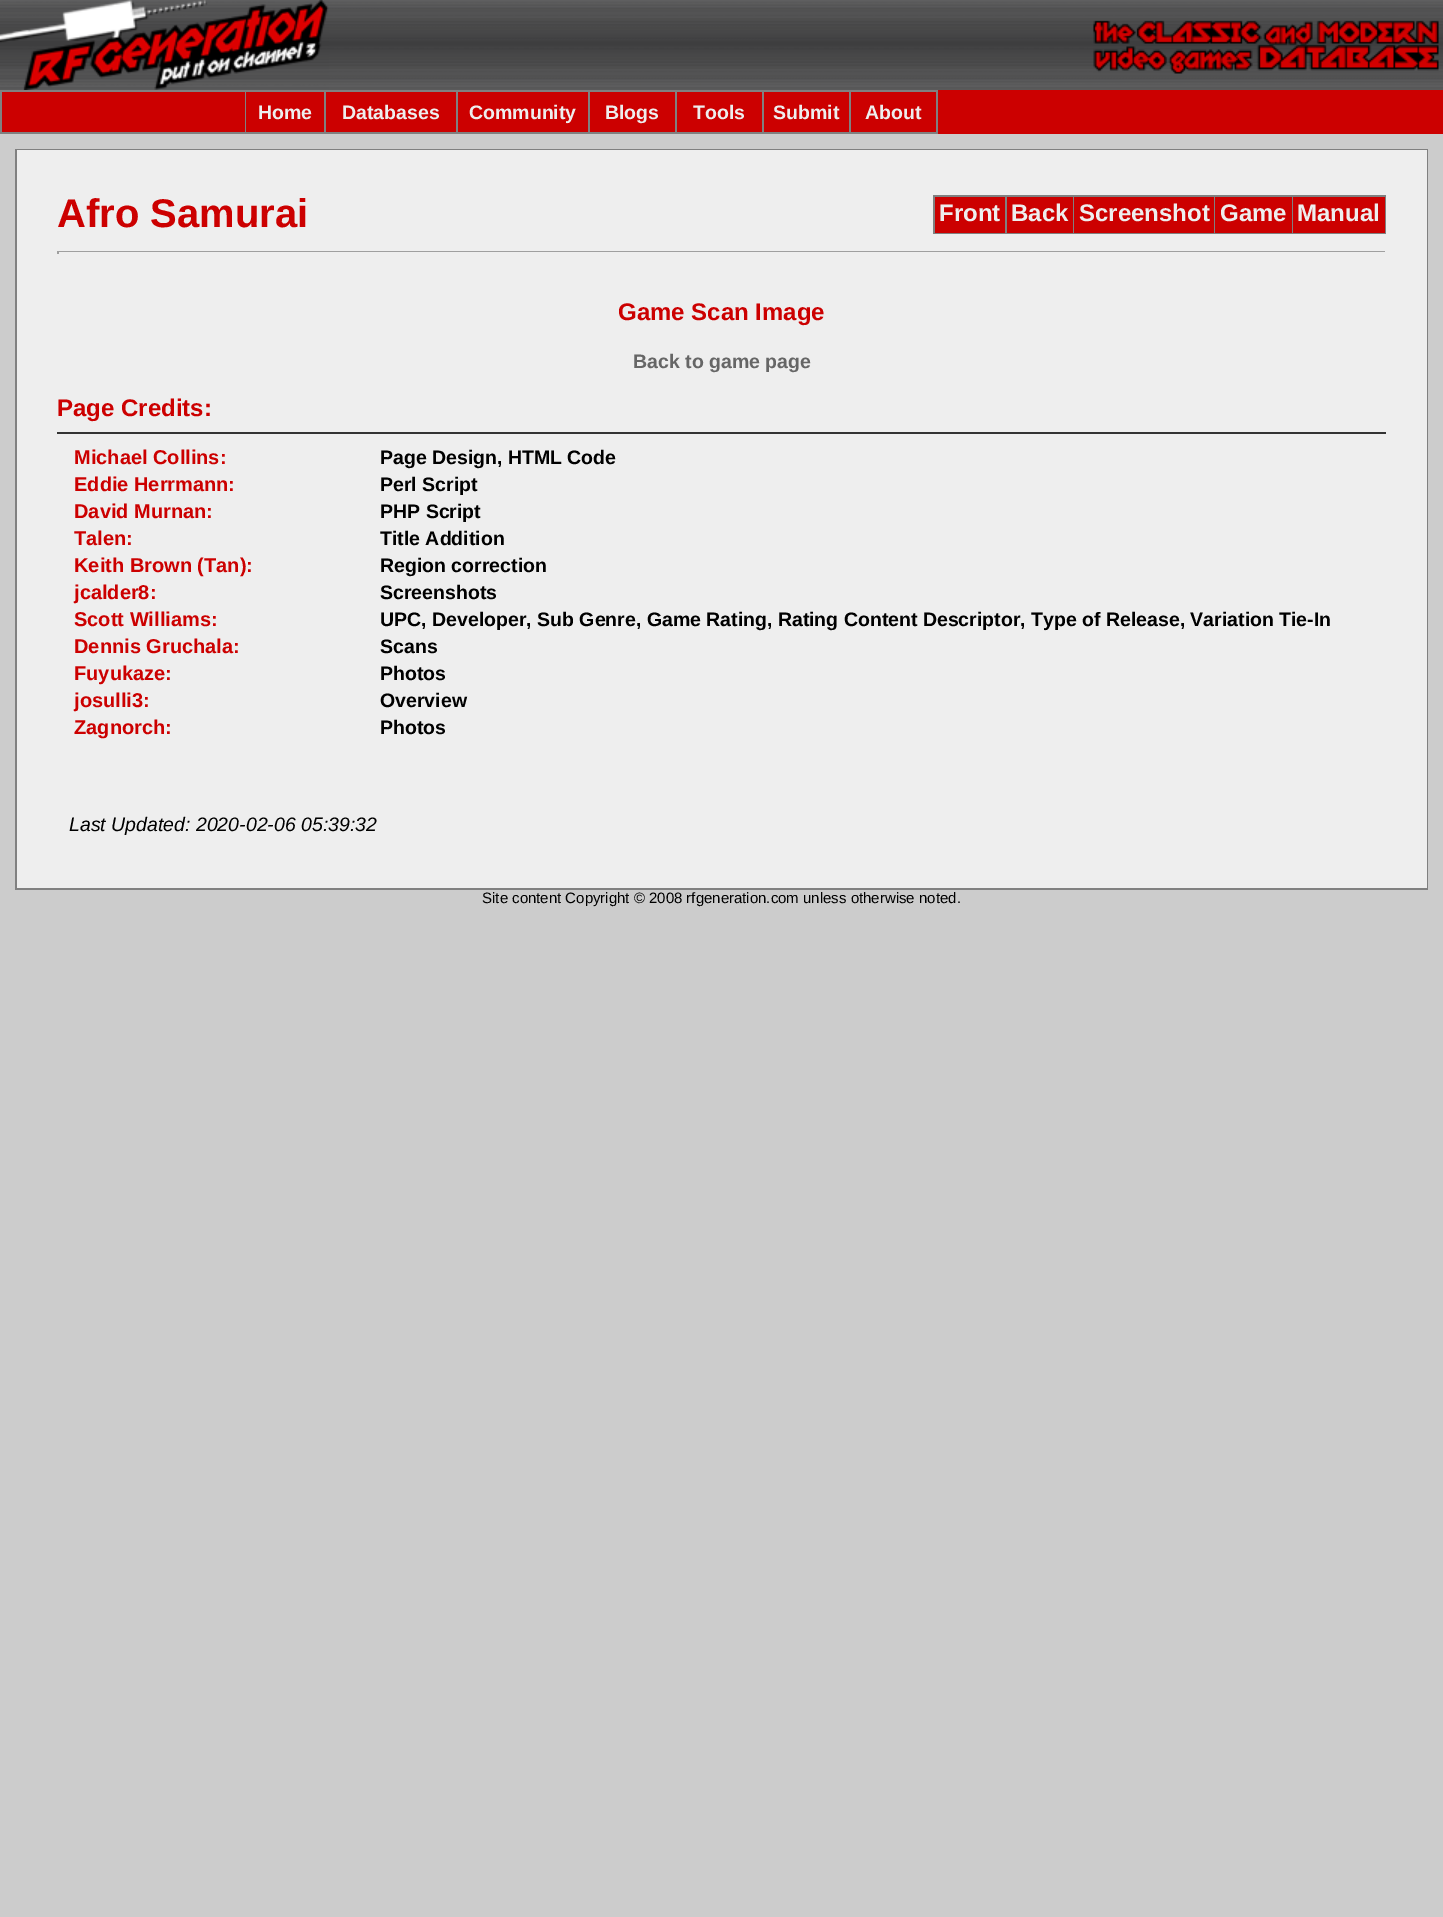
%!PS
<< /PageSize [1443 1917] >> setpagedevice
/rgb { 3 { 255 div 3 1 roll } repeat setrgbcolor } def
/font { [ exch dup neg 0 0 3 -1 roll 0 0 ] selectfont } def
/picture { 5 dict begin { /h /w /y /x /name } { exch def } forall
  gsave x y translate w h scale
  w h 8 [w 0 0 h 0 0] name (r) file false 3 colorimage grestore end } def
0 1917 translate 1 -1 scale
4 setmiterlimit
204 204 204 rgb
0 0 1443 1917 rectfill
(img/1.rgb) 329 0 1114 90 picture
(img/2.rgb) 0 0 329 90 picture
(img/3.rgb) 1093 20 346 54 picture
[
  [938 90 505 44 204 0 0]
  [0 90 938 44 128 128 128]
  [2 92 243 40 204 0 0]
  [246 92 78 40 204 0 0]
  [326 92 130 40 204 0 0]
  [458 92 130 40 204 0 0]
  [590 92 85 40 204 0 0]
  [677 92 85 40 204 0 0]
  [764 92 85 40 204 0 0]
  [851 92 85 40 204 0 0]
  [15 149 1413 741 128 128 128]
  [17 150 1410 738 238 238 238]
  [933 195 453 39 128 128 128]
  [935 197 70 36 204 0 0]
  [1007 197 66 36 204 0 0]
  [1074 197 140 36 204 0 0]
  [1215 197 77 36 204 0 0]
  [1293 197 92 36 204 0 0]
  [57 251 1329 1 159 159 159]
  [1385 251 1 3 238 238 238]
  [57 251 2 3 159 159 159]
  [57 432 1329 2 51 51 51]
] { aload pop rgb rectfill } forall
/LiberationSans-Bold 19.5 font
238 238 238 rgb
[
  [(Home) 258 119]
  [(Databases) 342 119]
  [(Community) 469 119]
  [(Blogs) 605 119]
  [(Tools) 693 119]
  [(Submit) 773 119]
  [(About) 865 119]
] { aload pop moveto show } forall
/LiberationSans-Bold 40 font
204 0 0 rgb
57 227 moveto (Afro Samurai) show
/LiberationSans-Bold 24 font
238 238 238 rgb
[
  [(Front) 939 221]
  [(Back) 1011 221]
  [(Screenshot) 1079 221]
  [(Game) 1220 221]
  [(Manual) 1297 221]
] { aload pop moveto show } forall
204 0 0 rgb
618 320 moveto (Game Scan Image) show
/LiberationSans-Bold 19.5 font
102 102 102 rgb
633 368 moveto (Back to game page) show
/LiberationSans-Bold 24 font
204 0 0 rgb
57 416 moveto (Page Credits:) show
/LiberationSans-Bold 20 font
74 464 moveto (Michael Collins:) show
/LiberationSans-Bold 19.5 font
0 0 0 rgb
380 464 moveto (Page Design, HTML Code) show
/LiberationSans-Bold 20 font
204 0 0 rgb
74 491 moveto (Eddie Herrmann:) show
/LiberationSans-Bold 19.5 font
0 0 0 rgb
380 491 moveto (Perl Script) show
/LiberationSans-Bold 20 font
204 0 0 rgb
74 518 moveto (David Murnan:) show
/LiberationSans-Bold 19.5 font
0 0 0 rgb
380 518 moveto (PHP Script) show
/LiberationSans-Bold 20 font
204 0 0 rgb
74 545 moveto (Talen:) show
/LiberationSans-Bold 19.5 font
0 0 0 rgb
380 545 moveto (Title Addition) show
/LiberationSans-Bold 20 font
204 0 0 rgb
74 572 moveto (Keith Brown \(Tan\):) show
/LiberationSans-Bold 19.5 font
0 0 0 rgb
380 572 moveto (Region correction) show
/LiberationSans-Bold 20 font
204 0 0 rgb
74 599 moveto (jcalder8:) show
/LiberationSans-Bold 19.5 font
0 0 0 rgb
380 599 moveto (Screenshots) show
/LiberationSans-Bold 20 font
204 0 0 rgb
74 626 moveto (Scott Williams:) show
/LiberationSans-Bold 19.5 font
0 0 0 rgb
380 626 moveto (UPC, Developer, Sub Genre, Game Rating, Rating Content Descriptor, Type of Release, Variation Tie-In) show
/LiberationSans-Bold 20 font
204 0 0 rgb
74 653 moveto (Dennis Gruchala:) show
/LiberationSans-Bold 19.5 font
0 0 0 rgb
380 653 moveto (Scans) show
/LiberationSans-Bold 20 font
204 0 0 rgb
74 680 moveto (Fuyukaze:) show
/LiberationSans-Bold 19.5 font
0 0 0 rgb
380 680 moveto (Photos) show
/LiberationSans-Bold 20 font
204 0 0 rgb
74 707 moveto (josulli3:) show
/LiberationSans-Bold 19.5 font
0 0 0 rgb
380 707 moveto (Overview) show
/LiberationSans-Bold 20 font
204 0 0 rgb
74 734 moveto (Zagnorch:) show
/LiberationSans-Bold 19.5 font
0 0 0 rgb
380 734 moveto (Photos) show
/LiberationSans-Italic 19.5 font
69 831 moveto (Last Updated: 2020-02-06 05:39:32) show
/LiberationSans-Regular 15 font
482 903 moveto (Site content Copyright © 2008 rfgeneration.com unless otherwise noted.) show
showpage
